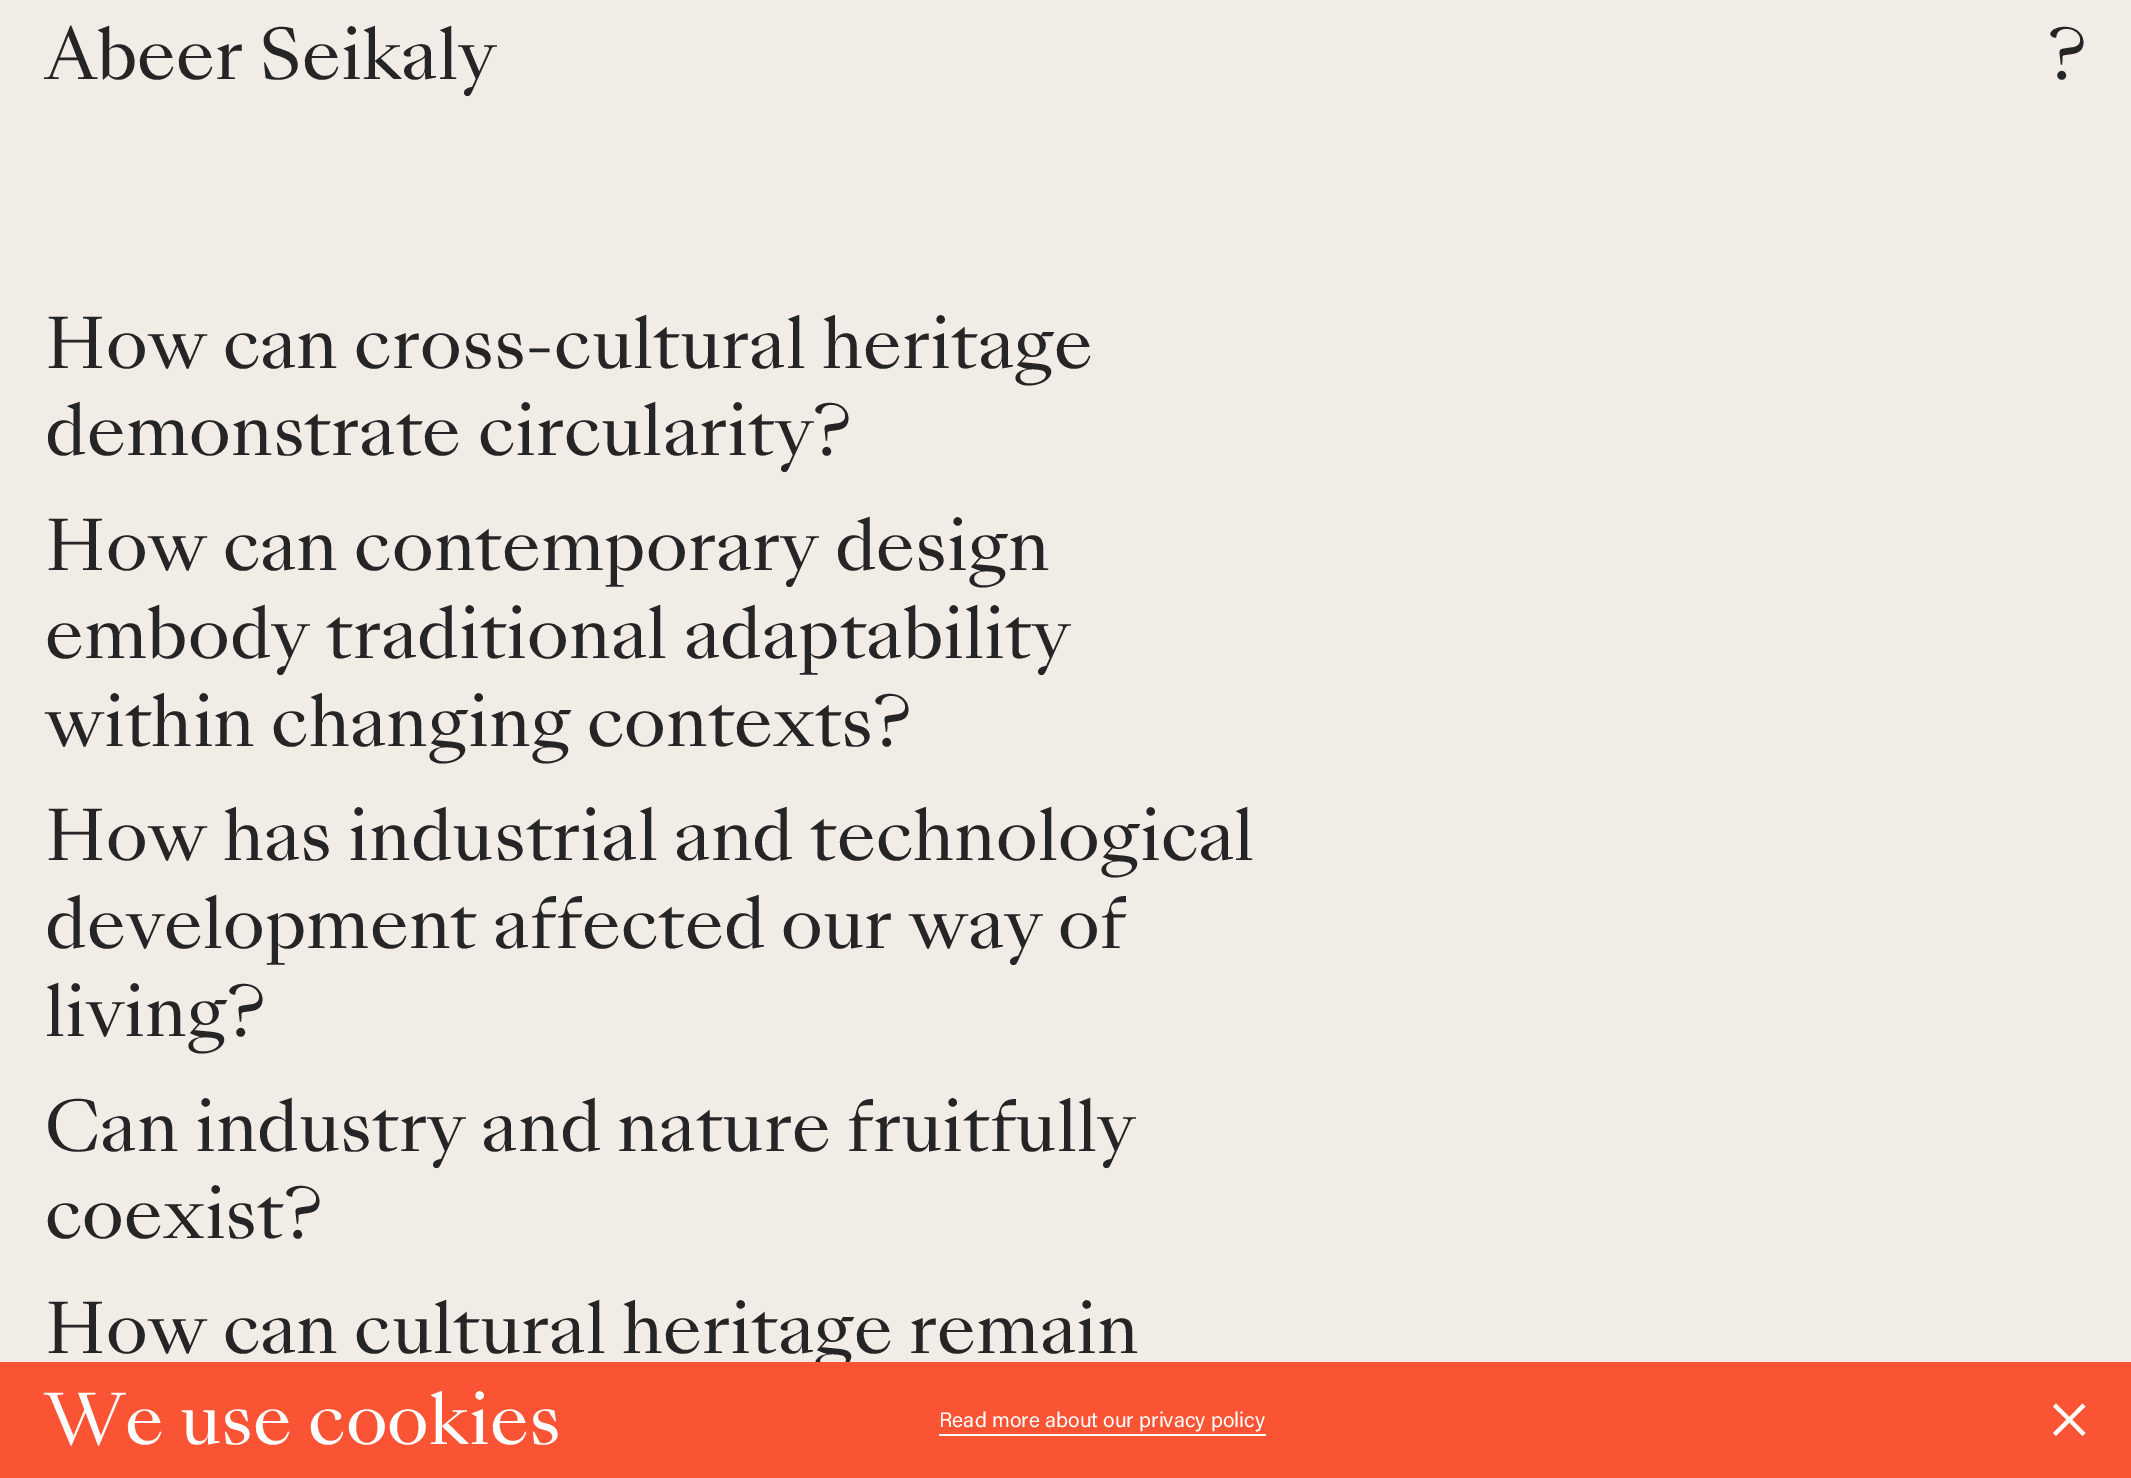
%!PS
<< /PageSize [2131 1478] >> setpagedevice
/rgb { 3 { 255 div 3 1 roll } repeat setrgbcolor } def
/font { [ exch dup neg 0 0 3 -1 roll 0 0 ] selectfont } def
0 1478 translate 1 -1 scale
4 setmiterlimit
242 236 230 rgb
0 0 2131 1478 rectfill
/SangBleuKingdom-Regular 67.5 font
37 37 37 rgb
[
  [(Abeer Seikaly) 45 79]
  [(?) 2048 79]
  [(How can cross-cultural heritage) 45 368]
  [(demonstrate circularity?) 45 455]
  [(How can contemporary design) 45 570]
  [(embody traditional adaptability) 45 658]
  [(within changing contexts?) 45 746]
  [(How has industrial and technological) 45 860]
  [(development affected our way of) 45 948]
  [(living?) 45 1036]
  [(Can industry and nature fruitfully) 45 1151]
  [(coexist?) 45 1238]
  [(How can cultural heritage remain) 45 1353]
] { aload pop moveto show } forall
250 84 52 rgb
0 1362 2131 116 rectfill
255 255 255 rgb
45 1444 moveto (We use cookies) show
939 1434 327 2 rectfill
/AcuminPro-Regular 21 font
939 1427 moveto (Read more about our privacy policy) show
2085.5 1406.5 moveto 2072 1419.5 lineto 2085.5 1433 lineto 2082.5 1436 lineto 2069.5 1422.5 lineto 2056 1436 lineto 2053 1433 lineto 2066.5 1419.5 lineto 2053 1406.5 lineto 2056 1403.5 lineto 2069.5 1417 lineto 2082.5 1403.5 lineto closepath eofill
showpage
